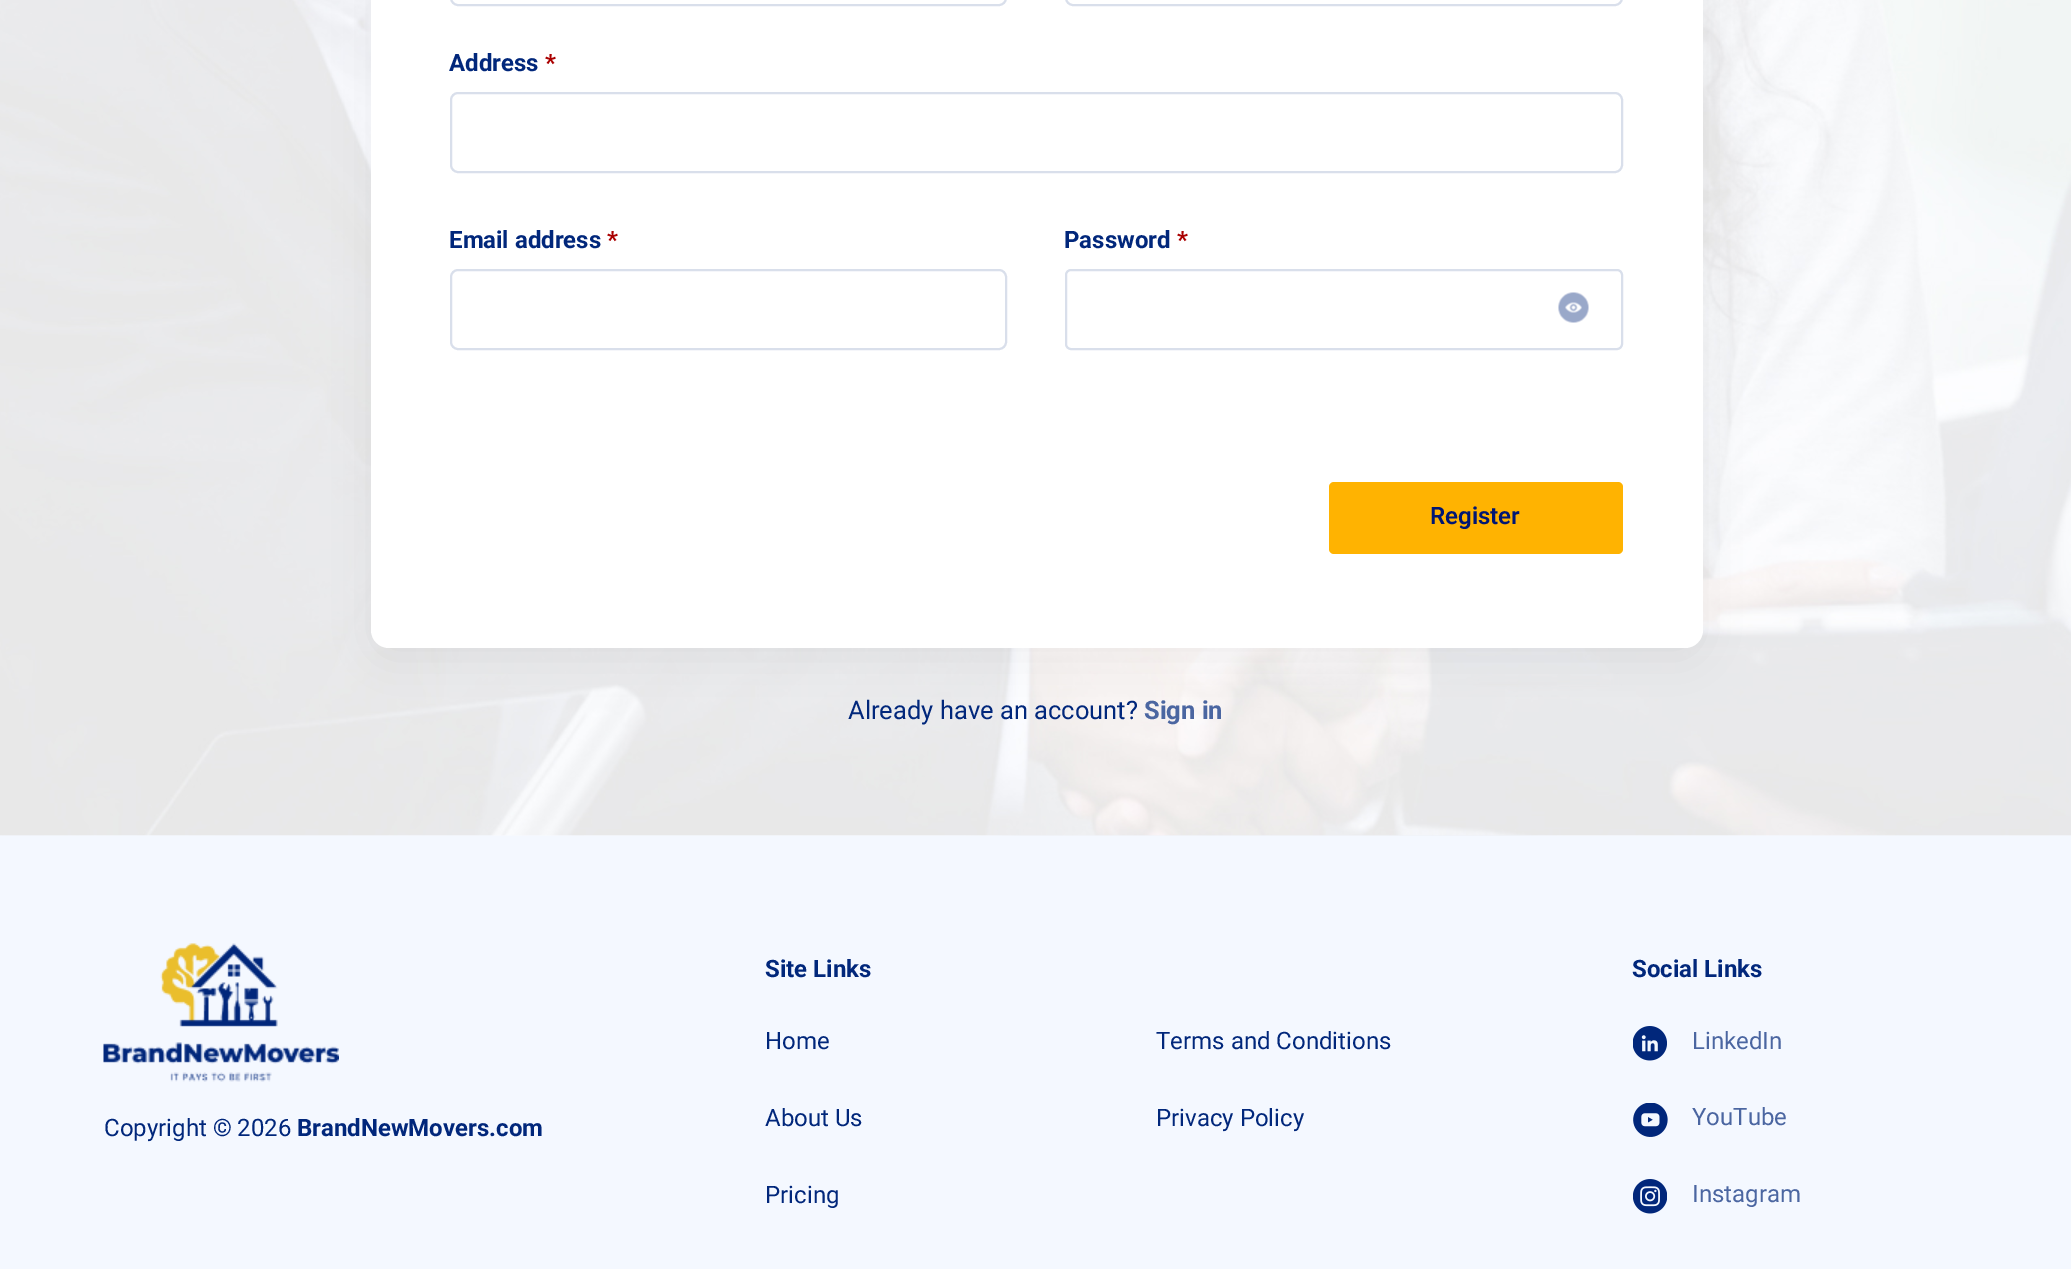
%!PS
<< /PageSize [2071 1269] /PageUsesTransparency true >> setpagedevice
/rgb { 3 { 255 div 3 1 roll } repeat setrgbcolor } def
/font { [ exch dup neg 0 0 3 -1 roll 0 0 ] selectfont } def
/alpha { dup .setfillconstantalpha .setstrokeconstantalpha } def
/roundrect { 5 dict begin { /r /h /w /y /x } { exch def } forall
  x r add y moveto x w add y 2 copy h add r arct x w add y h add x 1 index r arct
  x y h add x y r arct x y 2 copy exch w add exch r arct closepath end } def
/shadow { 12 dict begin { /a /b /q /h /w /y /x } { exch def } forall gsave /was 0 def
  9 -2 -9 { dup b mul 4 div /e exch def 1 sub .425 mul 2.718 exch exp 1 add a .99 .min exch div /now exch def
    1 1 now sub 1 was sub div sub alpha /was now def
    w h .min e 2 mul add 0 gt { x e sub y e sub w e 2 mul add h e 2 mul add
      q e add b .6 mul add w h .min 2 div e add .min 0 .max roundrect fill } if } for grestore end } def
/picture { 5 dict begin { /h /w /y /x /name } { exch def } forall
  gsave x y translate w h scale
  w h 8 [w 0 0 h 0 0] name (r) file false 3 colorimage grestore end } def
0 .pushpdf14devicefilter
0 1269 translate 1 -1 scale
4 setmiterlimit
244 248 255 rgb
0 0 2071 1269 rectfill
(img/1.rgb) 0 0 2071 836 picture
0 0 0 rgb
371 -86 1332 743 18 22.5 0.05 shadow
255 255 255 rgb
371 -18 1332 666 18 roundrect fill
217 223 235 rgb
2 setlinewidth
451 -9 555 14 7 roundrect stroke
1066 -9 556 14 7 roundrect stroke
451 93 1171 79 7 roundrect stroke
451 270 555 79 7 roundrect stroke
1066 270 556 79 5 roundrect stroke
(img/2.rgb) 1558 292 31 31 picture
255 179 1 rgb
1329 482 294 72 5 roundrect fill
(img/3.rgb) 103 943 236 139 picture
(img/4.rgb) 1633 1026 34 35 picture
(img/5.rgb) 1633 1103 35 34 picture
(img/6.rgb) 1633 1179 34 35 picture
/Roboto-Bold 24 font
1 39 123 rgb
449 71 moveto (Address) show
170 0 0 rgb
545 71 moveto (*) show
1 39 123 rgb
449 248 moveto (Email address) show
170 0 0 rgb
607 248 moveto (*) show
1 39 123 rgb
1064 248 moveto (Password) show
170 0 0 rgb
1177 248 moveto (*) show
/Roboto-SemiBold 24 font
0 22 115 rgb
1430 524 moveto (Register) show
/Roboto-Regular 25.5 font
1 39 123 rgb
848 719 moveto (Already have an account?) show
/Roboto-Bold 25.5 font
75 102 161 rgb
1144 719 moveto (Sign in) show
/Roboto-Regular 24 font
1 39 123 rgb
104 1136 moveto (Copyright © 2026) show
/Roboto-Bold 24 font
297 1136 moveto (BrandNewMovers.com) show
765 977 moveto (Site Links) show
/Roboto-Regular 24 font
[
  [(Home) 765 1049]
  [(Terms and Conditions) 1156 1049]
  [(About Us) 765 1126]
  [(Privacy Policy) 1156 1126]
  [(Pricing) 765 1203]
] { aload pop moveto show } forall
/Roboto-Bold 24 font
1632 977 moveto (Social Links) show
/Roboto-Regular 24 font
75 102 161 rgb
[
  [(LinkedIn) 1692 1049]
  [(YouTube) 1692 1125]
  [(Instagram) 1692 1202]
] { aload pop moveto show } forall
.poppdf14devicefilter showpage
